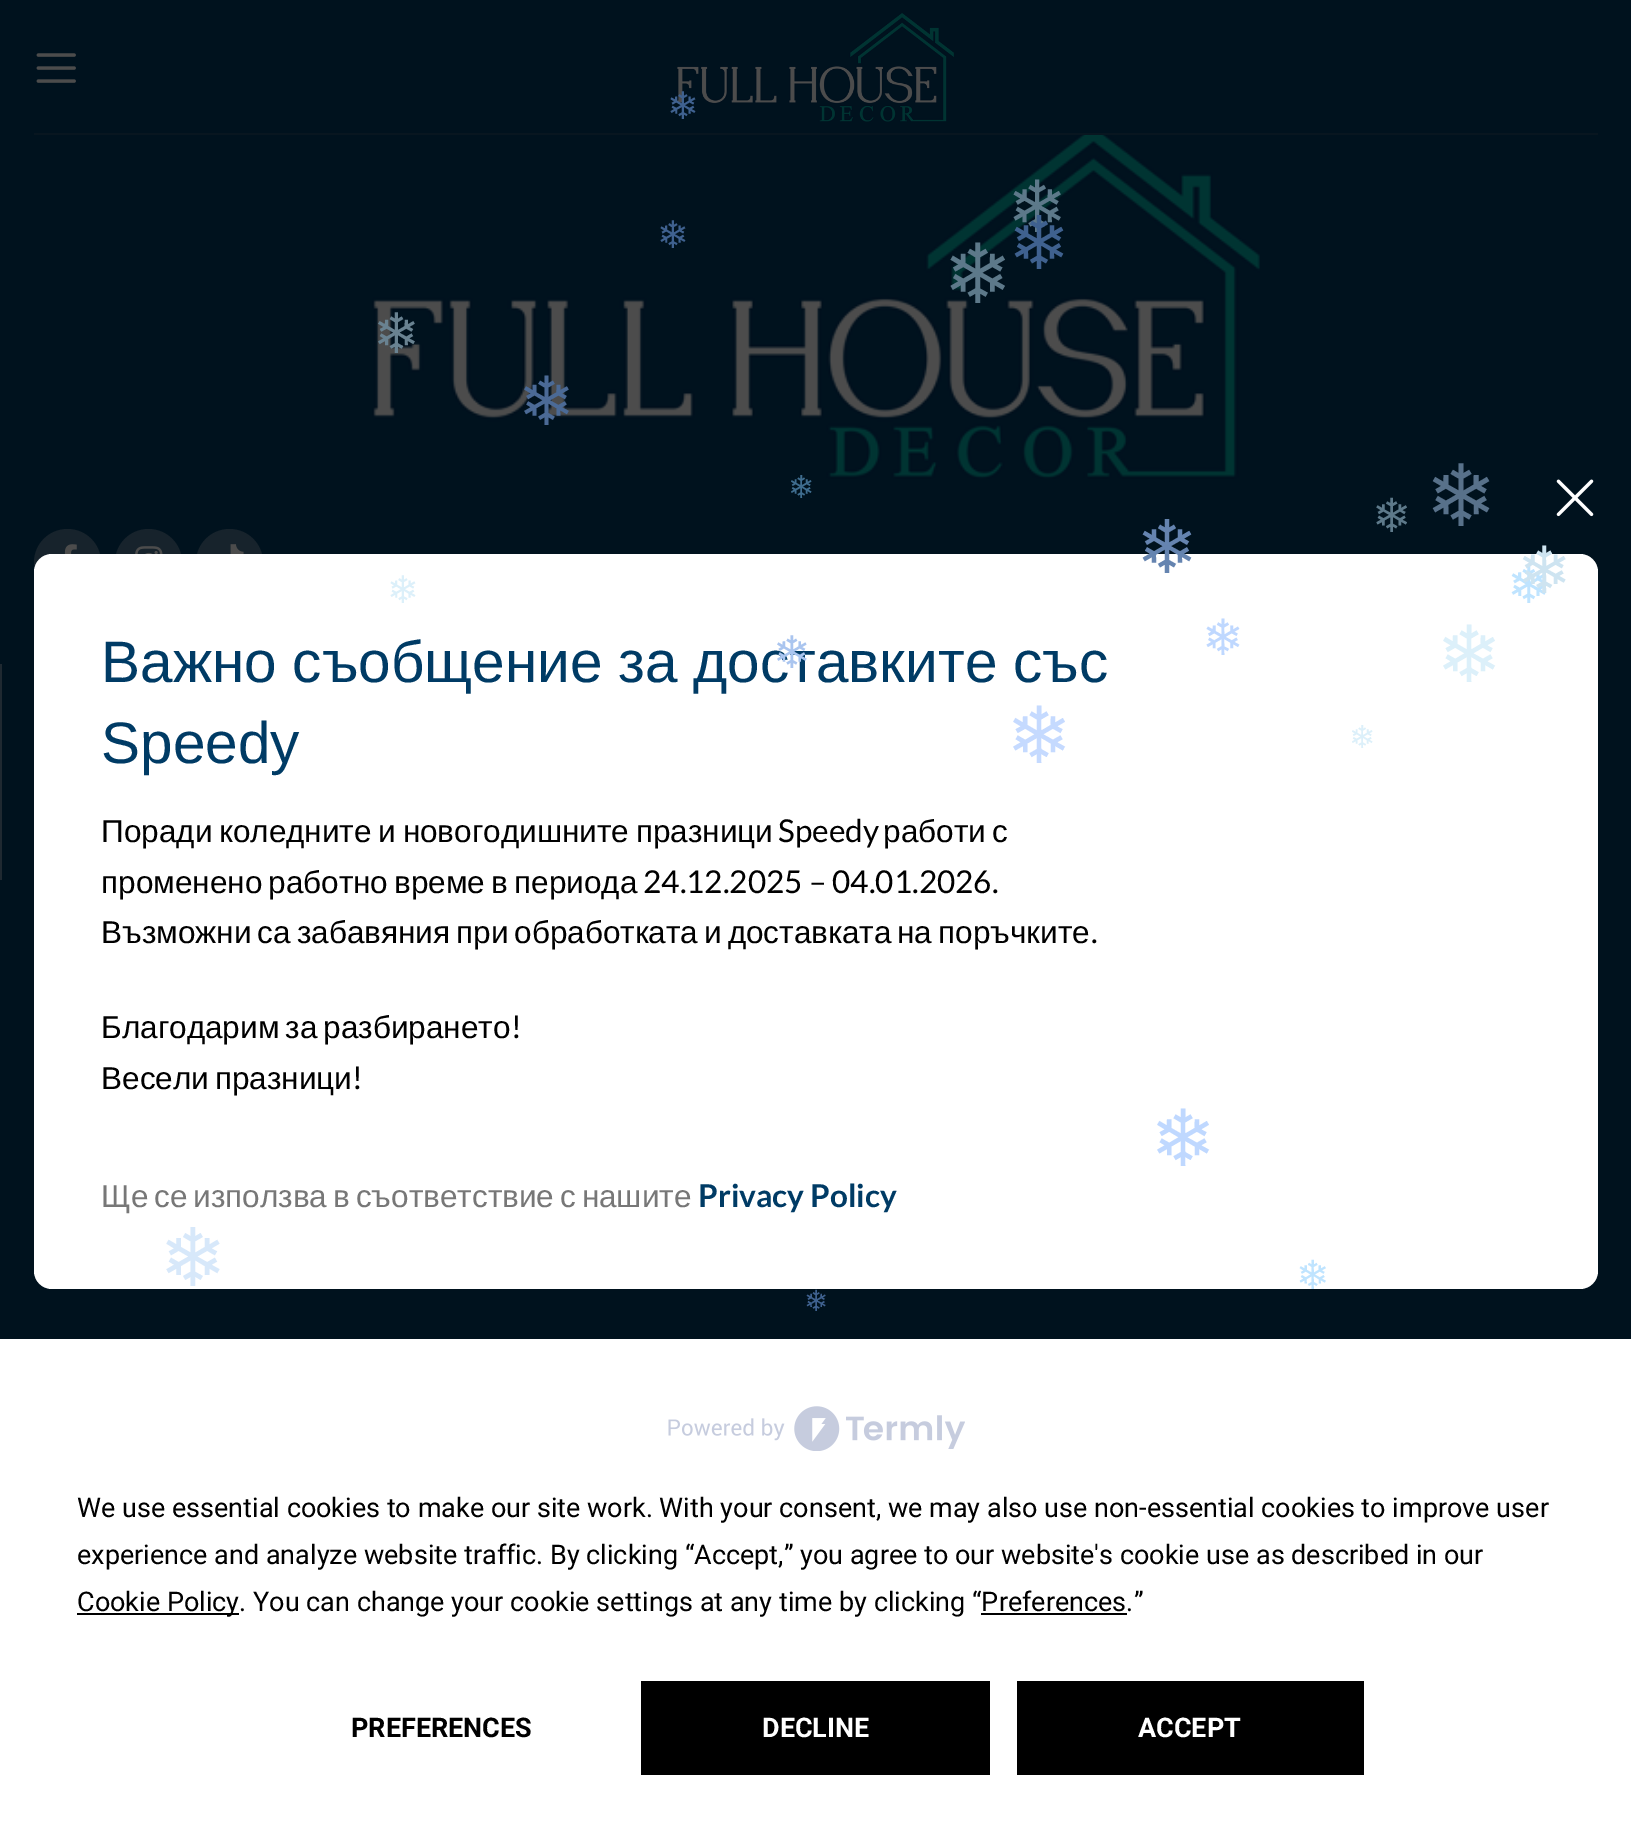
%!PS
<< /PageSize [1631 1841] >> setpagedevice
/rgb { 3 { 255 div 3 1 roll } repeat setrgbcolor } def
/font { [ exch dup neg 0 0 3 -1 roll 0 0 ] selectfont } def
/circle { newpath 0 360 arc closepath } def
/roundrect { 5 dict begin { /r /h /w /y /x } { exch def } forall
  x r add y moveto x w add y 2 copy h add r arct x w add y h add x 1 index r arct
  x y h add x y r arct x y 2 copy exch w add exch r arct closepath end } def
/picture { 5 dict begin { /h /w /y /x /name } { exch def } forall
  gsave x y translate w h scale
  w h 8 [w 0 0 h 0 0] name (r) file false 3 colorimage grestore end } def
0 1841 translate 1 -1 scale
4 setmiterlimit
0 18 30 rgb
0 0 1631 1841 rectfill
8 22 32 rgb
34 133 1564 2 rectfill
(img/1.rgb) 36 53 40 30 picture
(img/2.rgb) 677 13 277 109 picture
(img/3.rgb) 372 135 888 344 picture
23 35 44 rgb
67.5 562.5 33.5 circle fill
(img/4.rgb) 64 544 13 10 picture
148.5 562.5 33.5 circle fill
(img/5.rgb) 135 546 28 8 picture
229.5 562.5 33.5 circle fill
(img/6.rgb) 230 544 14 10 picture
31 41 49 rgb
0 664 2 216 rectfill
(img/7.rgb) 1556 479 38 38 picture
255 255 255 rgb
34 554 1564 735 18 roundrect fill
0 1339 1631 502 rectfill
(img/8.rgb) 668 1406 297 45 picture
[
  [77 1613 162 2 0 0 0]
  [981 1613 146 2 0 0 0]
  [641 1681 349 94 0 0 0]
  [1017 1681 347 94 0 0 0]
] { aload pop rgb rectfill } forall
/DejaVuSans-Regular 38 font
63 97 143 rgb
667 119 moveto (❄) show
/DejaVuSans-Regular 72 font
93 121 138 rgb
1007 232 moveto (❄) show
/DejaVuSans-Regular 38 font
63 97 143 rgb
657 248 moveto (❄) show
/DejaVuSans-Regular 74 font
1008 269 moveto (❄) show
/DejaVuSans-Regular 83 font
93 121 138 rgb
943 303 moveto (❄) show
/DejaVuSans-Regular 56 font
105 130 145 rgb
373 353 moveto (❄) show
/DejaVuSans-Regular 68 font
75 106 150 rgb
518 425 moveto (❄) show
/DejaVuSans-Regular 31.5 font
63 109 143 rgb
788 498 moveto (❄) show
/DejaVuSans-Regular 86 font
88 113 138 rgb
1425 526 moveto (❄) show
/DejaVuSans-Regular 47 font
93 121 138 rgb
1372 532 moveto (❄) show
/DejaVuSans-Regular 74 font
101 132 176 rgb
1136 573 moveto (❄) show
/DejaVuSans-Regular 38 font
220 240 250 rgb
387 603 moveto (❄) show
/DejaVuSans-Regular 52 font
191 228 255 rgb
1507 603 moveto (❄) show
/DejaVuSans-Regular 65 font
206 228 241 rgb
1517 593 moveto (❄) show
/DejaVuSans-Regular 50 font
191 216 255 rgb
1202 655 moveto (❄) show
/DejaVuSans-Regular 79 font
220 240 250 rgb
1436 682 moveto (❄) show
/LiberationSans-Regular 58.5 font
0 59 101 rgb
101 682 moveto -0.5 0 32 (Важно съобщение за доставките със) widthshow
/DejaVuSans-Regular 45 font
170 197 239 rgb
773 668 moveto (❄) show
/LiberationSans-Regular 58.5 font
0 59 101 rgb
101 763 moveto (Speedy) show
/LiberationSans-Regular 31.5 font
0 0 0 rgb
101 842 moveto -2 0 32 (Поради коледните и новогодишните празници) widthshow
/Lato-Regular 31.5 font
778 842 moveto (Speedy) show
/LiberationSans-Regular 31.5 font
883 842 moveto -2 0 32 (работи с) widthshow
[
  [(променено) 101 893]
  [(работно) 268 893]
  [(време) 394 893]
  [(в) 491 893]
  [(периода) 514 893]
] { aload pop moveto show } forall
/Lato-Regular 31.5 font
643 893 moveto (24.12.2025 – 04.01.2026.) show
/LiberationSans-Regular 31.5 font
101 943 moveto -2.75 0 32 (Възможни са забавяния при обработката и доставката на поръчките) widthshow
/Lato-Regular 31.5 font
1091 943 moveto (.) show
/LiberationSans-Regular 31.5 font
101 1038 moveto -2.75 0 32 (Благодарим за разбирането) widthshow
/Lato-Regular 31.5 font
511 1038 moveto (!) show
/LiberationSans-Regular 31.5 font
101 1089 moveto -2.75 0 32 (Весели празници) widthshow
/Lato-Regular 31.5 font
352 1089 moveto (!) show
/LiberationSans-Regular 31.5 font
119 119 119 rgb
101 1207 moveto -2.75 0 32 (Ще се използва в съответствие с нашите) widthshow
/Lato-Bold 31.5 font
0 59 101 rgb
698 1207 moveto (Privacy Policy) show
/DejaVuSans-Regular 79 font
197 218 255 rgb
1006 763 moveto (❄) show
/DejaVuSans-Regular 31.5 font
220 240 250 rgb
1349 748 moveto (❄) show
/DejaVuSans-Regular 79 font
191 216 255 rgb
1150 1166 moveto (❄) show
/DejaVuSans-Regular 81 font
215 232 250 rgb
159 1286 moveto (❄) show
/DejaVuSans-Regular 40 font
191 228 255 rgb
1296 1289 moveto (❄) show
/DejaVuSans-Regular 29 font
63 97 143 rgb
804 1311 moveto (❄) show
/Roboto-Regular 27 font
0 0 0 rgb
[
  [(We use essential cookies to make our site work. With your consent, we may also use non-essential cookies to improve user) 77 1517]
  [(experience and analyze website traffic. By clicking “Accept,” you agree to our website's cookie use as described in our) 77 1564]
  [(Cookie Policy. You can change your cookie settings at any time by clicking “Preferences.”) 77 1611]
] { aload pop moveto show } forall
/Roboto-Bold 27 font
351 1737 moveto (PREFERENCES) show
255 255 255 rgb
762 1737 moveto (DECLINE) show
1138 1737 moveto (ACCEPT) show
showpage
